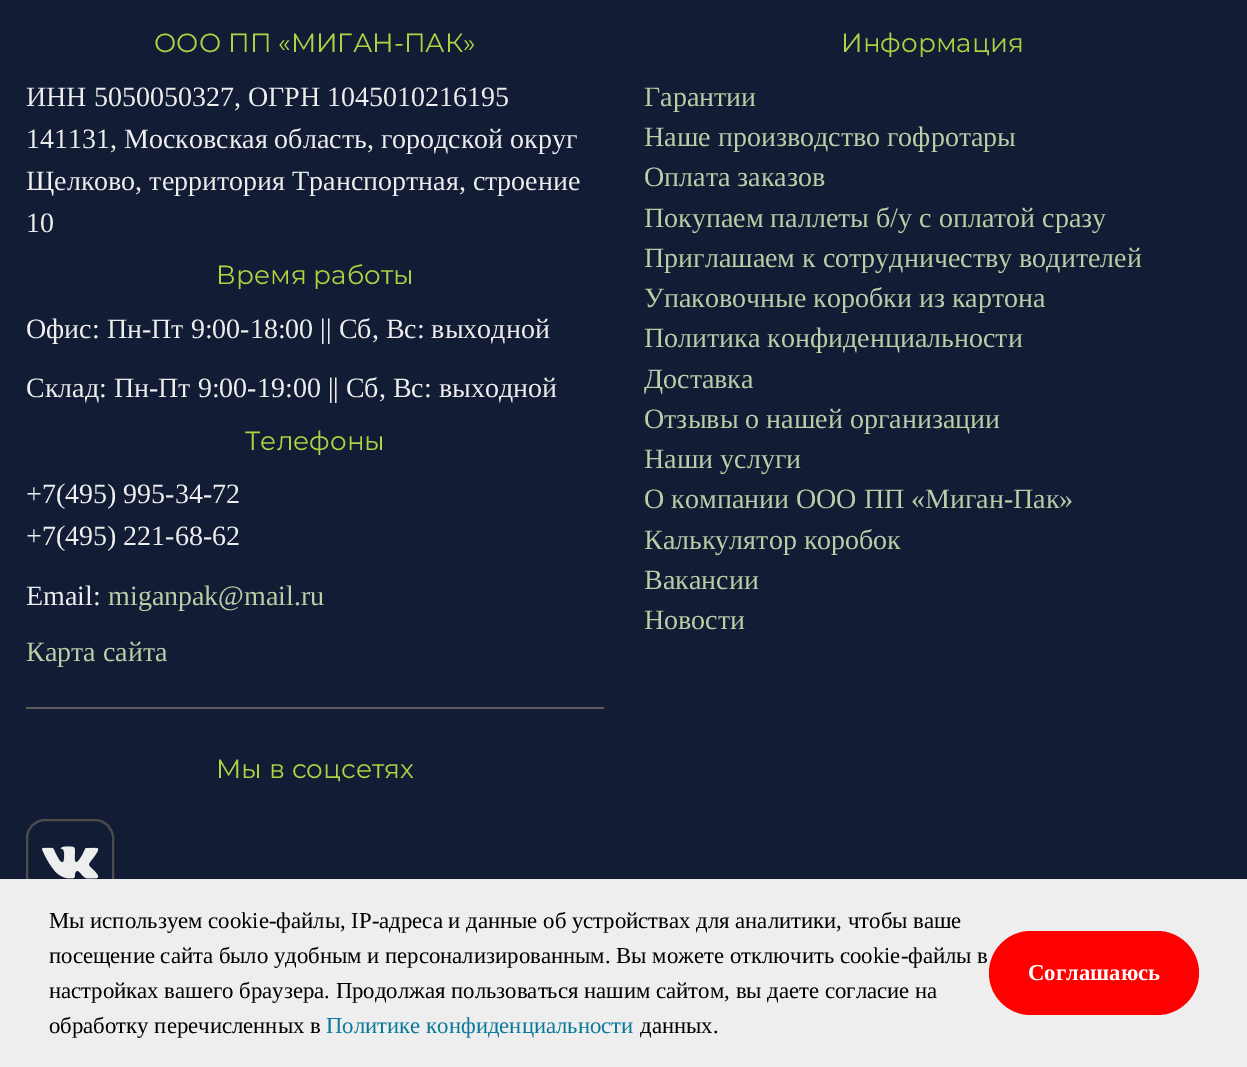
%!PS
<< /PageSize [1247 1067] >> setpagedevice
/rgb { 3 { 255 div 3 1 roll } repeat setrgbcolor } def
/font { [ exch dup neg 0 0 3 -1 roll 0 0 ] selectfont } def
/roundrect { 5 dict begin { /r /h /w /y /x } { exch def } forall
  x r add y moveto x w add y 2 copy h add r arct x w add y h add x 1 index r arct
  x y h add x y r arct x y 2 copy exch w add exch r arct closepath end } def
/picture { 5 dict begin { /h /w /y /x /name } { exch def } forall
  gsave x y translate w h scale
  w h 8 [w 0 0 h 0 0] name (r) file false 3 colorimage grestore end } def
0 1067 translate 1 -1 scale
4 setmiterlimit
19 28 53 rgb
0 0 1247 1067 rectfill
94 92 92 rgb
26 707 578 2 rectfill
77 77 77 rgb
2 setlinewidth
27 820 86 82 18 roundrect stroke
(img/1.rgb) 42 846 57 33 picture
238 238 238 rgb
0 879 1247 188 rectfill
255 0 0 rgb
989 931 210 84 42 roundrect fill
/Montserrat-Regular 26.25 font
179 209 66 rgb
154 52 moveto (ООО ПП «МИГАН-ПАК») show
/LiberationSerif-Regular 28 font
238 238 238 rgb
[
  [(ИНН 5050050327, ОГРН 1045010216195) 26 106]
  [(141131, Московская область, городской округ) 26 148]
  [(Щелково, территория Транспортная, строение) 26 190]
  [(10) 26 232]
] { aload pop moveto show } forall
/Montserrat-Regular 26.25 font
179 209 66 rgb
216 284 moveto (Время работы) show
/LiberationSerif-Regular 28 font
238 238 238 rgb
26 338 moveto (Офис: Пн-Пт 9:00-18:00 || Сб, Вс: выходной) show
26 397 moveto (Склад: Пн-Пт 9:00-19:00 || Сб, Вс: выходной) show
/Montserrat-Regular 26.25 font
179 209 66 rgb
245 450 moveto (Телефоны) show
/LiberationSerif-Regular 28 font
238 238 238 rgb
[
  [(+7\(495\) 995-34-72) 26 503]
  [(+7\(495\) 221-68-62) 26 545]
  [(Email:) 26 605]
] { aload pop moveto show } forall
187 206 168 rgb
108 605 moveto (miganpak@mail.ru) show
26 661 moveto (Карта сайта) show
/Montserrat-Regular 26.25 font
179 209 66 rgb
841 52 moveto (Информация) show
/LiberationSerif-Regular 28 font
187 206 168 rgb
[
  [(Гарантии) 644 106]
  [(Наше производство гофротары) 644 146]
  [(Оплата заказов) 644 186]
  [(Покупаем паллеты б/у с оплатой сразу) 644 227]
  [(Приглашаем к сотрудничеству водителей) 644 267]
  [(Упаковочные коробки из картона) 644 307]
  [(Политика конфиденциальности) 644 347]
  [(Доставка) 644 388]
  [(Отзывы о нашей организации) 644 428]
  [(Наши услуги) 644 468]
  [(О компании ООО ПП «Миган-Пак») 644 508]
  [(Калькулятор коробок) 644 549]
  [(Вакансии) 644 589]
  [(Новости) 644 629]
] { aload pop moveto show } forall
/Montserrat-Regular 26.25 font
179 209 66 rgb
216 778 moveto (Мы в соцсетях) show
/LiberationSerif-Regular 22.75 font
0 0 0 rgb
[
  [(Мы используем cookie-файлы, IP-адреса и данные об устройствах для аналитики, чтобы ваше) 49 928]
  [(посещение сайта было удобным и персонализированным. Вы можете отключить cookie-файлы в) 49 963]
  [(настройках вашего браузера. Продолжая пользоваться нашим сайтом, вы даете согласие на) 49 998]
  [(обработку перечисленных в) 49 1033]
] { aload pop moveto show } forall
10 121 155 rgb
326 1033 moveto (Политике конфиденциальности) show
0 0 0 rgb
640 1033 moveto (данных.) show
/LiberationSerif-Bold 22.75 font
255 255 255 rgb
1028 980 moveto (Соглашаюсь) show
showpage
